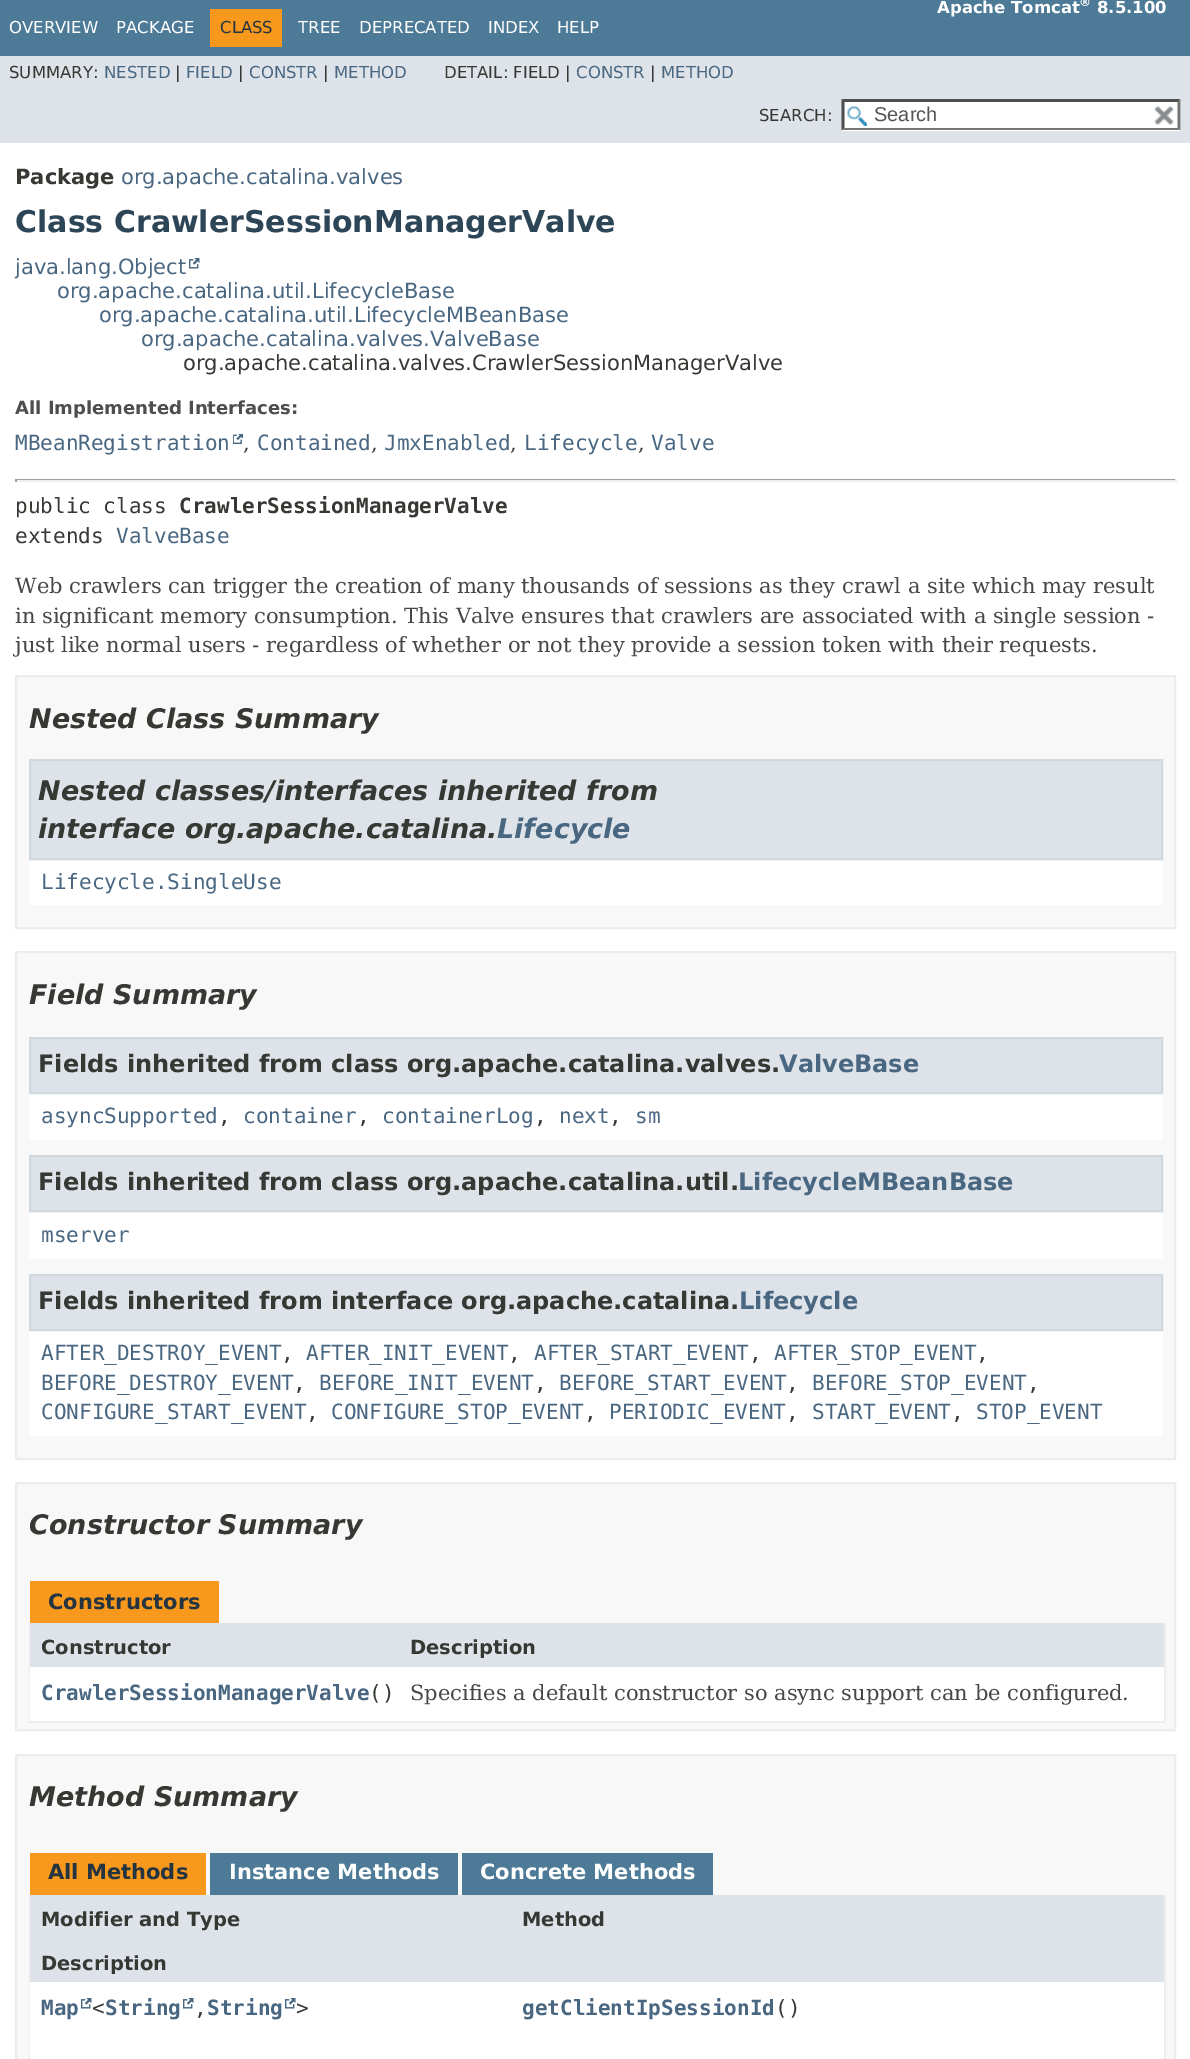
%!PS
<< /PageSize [1190 2059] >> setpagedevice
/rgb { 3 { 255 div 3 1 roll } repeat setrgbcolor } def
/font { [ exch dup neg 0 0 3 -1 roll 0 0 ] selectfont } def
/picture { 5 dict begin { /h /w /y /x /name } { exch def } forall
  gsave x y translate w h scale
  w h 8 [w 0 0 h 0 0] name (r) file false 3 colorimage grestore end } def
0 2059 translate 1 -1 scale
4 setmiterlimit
255 255 255 rgb
0 0 1190 2059 rectfill
[
  [0 0 1190 56 77 122 151]
  [210 9 72 38 248 152 29]
  [0 56 1190 87 222 227 233]
  [842 99 339 32 255 255 255]
] { aload pop rgb rectfill } forall
(img/1.rgb) 847 106 20 20 picture
79 79 79 rgb
842 99 moveto 1180 99 lineto 1178 102 lineto 844 102 lineto closepath fill
118 118 118 rgb
1180.5 99 moveto 1180.5 130.5 lineto 1177.5 127.5 lineto 1177.5 102 lineto closepath fill
1180 130 moveto 842 130 lineto 844 128 lineto 1178 128 lineto closepath fill
79 79 79 rgb
841.5 130.5 moveto 841.5 99 lineto 844.5 102 lineto 844.5 127.5 lineto closepath fill
(img/2.rgb) 1154 106 20 19 picture
(img/3.rgb) 189 258 11 11 picture
(img/4.rgb) 233 434 10 10 picture
[
  [15 479 1161 1 159 159 159]
  [1175 479 2 3 238 238 238]
  [15 480 1161 2 238 238 238]
  [15 479 2 3 159 159 159]
] { aload pop rgb rectfill } forall
248 248 248 rgb
16 676 moveto 1175 676 lineto 1175 928 lineto 16 928 lineto closepath gsave fill grestore
237 237 237 rgb
2 setlinewidth
stroke
255 255 255 rgb
29 860 1134 45 rectfill
222 227 233 rgb
30 760 moveto 1162 760 lineto 1162 859 lineto 30 859 lineto closepath gsave fill grestore
208 217 224 rgb
stroke
248 248 248 rgb
16 952 moveto 1175 952 lineto 1175 1459 lineto 16 1459 lineto closepath gsave fill grestore
237 237 237 rgb
stroke
255 255 255 rgb
29 1094 1134 46 rectfill
222 227 233 rgb
30 1038 moveto 1162 1038 lineto 1162 1093 lineto 30 1093 lineto closepath gsave fill grestore
208 217 224 rgb
stroke
255 255 255 rgb
29 1212 1134 47 rectfill
222 227 233 rgb
30 1156 moveto 1162 1156 lineto 1162 1211 lineto 30 1211 lineto closepath gsave fill grestore
208 217 224 rgb
stroke
255 255 255 rgb
29 1331 1134 105 rectfill
222 227 233 rgb
30 1275 moveto 1162 1275 lineto 1162 1330 lineto 30 1330 lineto closepath gsave fill grestore
208 217 224 rgb
stroke
248 248 248 rgb
16 1483 moveto 1175 1483 lineto 1175 1730 lineto 16 1730 lineto closepath gsave fill grestore
237 237 237 rgb
stroke
[
  [30 1581 189 42 248 152 29]
  [1164 1623 2 99 238 238 238]
  [29 1721 1137 2 238 238 238]
  [29 1623 2 99 238 238 238]
  [30 1623 1134 44 222 227 233]
  [30 1667 1134 54 255 255 255]
] { aload pop rgb rectfill } forall
248 248 248 rgb
16 1755 moveto 1175 1755 lineto 1175 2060 lineto 16 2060 lineto closepath gsave fill grestore
237 237 237 rgb
stroke
[
  [30 1853 176 42 248 152 29]
  [210 1853 248 42 77 122 151]
  [462 1853 251 42 77 122 151]
  [1164 1895 2 164 238 238 238]
  [29 1895 1 164 238 238 238]
  [30 1895 1134 43 222 227 233]
  [30 1938 1134 44 222 227 233]
  [30 1982 1134 46 255 255 255]
] { aload pop rgb rectfill } forall
(img/3.rgb) 81 1998 11 11 picture
(img/3.rgb) 183 1998 11 11 picture
(img/3.rgb) 285 1998 11 11 picture
30 2028 1134 31 rectfill
/DejaVuSans-Bold 16.5 font
937 13 moveto (Apache Tomcat) show
/DejaVuSans-Bold 12 font
1079 6 moveto (®) show
/DejaVuSans-Bold 16.5 font
1097 13 moveto (8.5.100) show
/DejaVuSans-Regular 16.5 font
9 33 moveto (OVERVIEW) show
116 33 moveto (PACKAGE) show
37 52 65 rgb
220 33 moveto (CLASS) show
255 255 255 rgb
[
  [(TREE) 298 33]
  [(DEPRECATED) 359 33]
  [(INDEX) 488 33]
  [(HELP) 557 33]
] { aload pop moveto show } forall
53 56 51 rgb
9 78 moveto (SUMMARY:) show
74 103 130 rgb
104 78 moveto (NESTED) show
53 56 51 rgb
175 78 moveto (|) show
74 103 130 rgb
186 78 moveto (FIELD) show
53 56 51 rgb
238 78 moveto (|) show
74 103 130 rgb
249 78 moveto (CONSTR) show
53 56 51 rgb
323 78 moveto (|) show
74 103 130 rgb
334 78 moveto (METHOD) show
53 56 51 rgb
444 78 moveto (DETAIL: FIELD |) show
74 103 130 rgb
576 78 moveto (CONSTR) show
53 56 51 rgb
650 78 moveto (|) show
74 103 130 rgb
661 78 moveto (METHOD) show
53 56 51 rgb
759 121 moveto (SEARCH:) show
/LiberationSans-Regular 20 font
84 84 84 rgb
874 121 moveto (Search) show
/DejaVuSans-Bold 21 font
53 56 51 rgb
15 184 moveto (Package) show
/DejaVuSans-Regular 21 font
74 103 130 rgb
121 184 moveto (org.apache.catalina.valves) show
/DejaVuSans-Bold 30 font
44 69 87 rgb
15 232 moveto (Class CrawlerSessionManagerValve) show
/DejaVuSans-Regular 21 font
74 103 130 rgb
[
  [(java.lang.Object) 15 274]
  [(org.apache.catalina.util.LifecycleBase) 57 298]
  [(org.apache.catalina.util.LifecycleMBeanBase) 99 322]
  [(org.apache.catalina.valves.ValveBase) 141 346]
] { aload pop moveto show } forall
53 56 51 rgb
183 370 moveto (org.apache.catalina.valves.CrawlerSessionManagerValve) show
/DejaVuSans-Bold 18 font
78 78 78 rgb
15 414 moveto (All Implemented Interfaces:) show
/DejaVuSansMono-Regular 21 font
74 103 130 rgb
15 450 moveto (MBeanRegistration) show
/DejaVuSerif-Regular 21 font
53 56 51 rgb
243 450 moveto (,) show
/DejaVuSansMono-Regular 21 font
74 103 130 rgb
257 450 moveto (Contained) show
/DejaVuSerif-Regular 21 font
53 56 51 rgb
371 450 moveto (,) show
/DejaVuSansMono-Regular 21 font
74 103 130 rgb
384 450 moveto (JmxEnabled) show
/DejaVuSerif-Regular 21 font
53 56 51 rgb
510 450 moveto (,) show
/DejaVuSansMono-Regular 21 font
74 103 130 rgb
524 450 moveto (Lifecycle) show
/DejaVuSerif-Regular 21 font
53 56 51 rgb
638 450 moveto (,) show
/DejaVuSansMono-Regular 21 font
74 103 130 rgb
651 450 moveto (Valve) show
53 56 51 rgb
15 513 moveto (public class) show
/DejaVuSansMono-Bold 21 font
179 513 moveto (CrawlerSessionManagerValve) show
/DejaVuSansMono-Regular 21 font
15 543 moveto (extends) show
74 103 130 rgb
116 543 moveto (ValveBase) show
/DejaVuSerif-Regular 21 font
71 71 71 rgb
[
  [(Web crawlers can trigger the creation of many thousands of sessions as they crawl a site which may result) 15 593]
  [(in significant memory consumption. This Valve ensures that crawlers are associated with a single session -) 15 623]
  [(just like normal users - regardless of whether or not they provide a session token with their requests.) 15 652]
] { aload pop moveto show } forall
/DejaVuSans-BoldItalic 27 font
53 56 51 rgb
[
  [(Nested Class Summary) 29 728]
  [(Nested classes/interfaces inherited from) 38 800]
  [(interface org.apache.catalina.) 38 838]
] { aload pop moveto show } forall
74 103 130 rgb
497 838 moveto (Lifecycle) show
/DejaVuSansMono-Regular 21 font
41 889 moveto (Lifecycle.SingleUse) show
/DejaVuSans-BoldItalic 27 font
53 56 51 rgb
29 1004 moveto (Field Summary) show
/DejaVuSans-Bold 24 font
38 1072 moveto (Fields inherited from class org.apache.catalina.valves.) show
74 103 130 rgb
779 1072 moveto (ValveBase) show
/DejaVuSansMono-Regular 21 font
41 1123 moveto (asyncSupported) show
53 56 51 rgb
218 1123 moveto (,) show
74 103 130 rgb
243 1123 moveto (container) show
53 56 51 rgb
357 1123 moveto (,) show
74 103 130 rgb
382 1123 moveto (containerLog) show
53 56 51 rgb
534 1123 moveto (,) show
74 103 130 rgb
559 1123 moveto (next) show
53 56 51 rgb
609 1123 moveto (,) show
74 103 130 rgb
635 1123 moveto (sm) show
/DejaVuSans-Bold 24 font
53 56 51 rgb
38 1190 moveto (Fields inherited from class org.apache.catalina.util.) show
74 103 130 rgb
738 1190 moveto (LifecycleMBeanBase) show
/DejaVuSansMono-Regular 21 font
41 1242 moveto (mserver) show
/DejaVuSans-Bold 24 font
53 56 51 rgb
38 1309 moveto (Fields inherited from interface org.apache.catalina.) show
74 103 130 rgb
739 1309 moveto (Lifecycle) show
/DejaVuSansMono-Regular 21 font
41 1360 moveto (AFTER_DESTROY_EVENT) show
53 56 51 rgb
281 1360 moveto (,) show
74 103 130 rgb
306 1360 moveto (AFTER_INIT_EVENT) show
53 56 51 rgb
508 1360 moveto (,) show
74 103 130 rgb
534 1360 moveto (AFTER_START_EVENT) show
53 56 51 rgb
749 1360 moveto (,) show
74 103 130 rgb
774 1360 moveto (AFTER_STOP_EVENT) show
53 56 51 rgb
976 1360 moveto (,) show
74 103 130 rgb
41 1390 moveto (BEFORE_DESTROY_EVENT) show
53 56 51 rgb
293 1390 moveto (,) show
74 103 130 rgb
319 1390 moveto (BEFORE_INIT_EVENT) show
53 56 51 rgb
534 1390 moveto (,) show
74 103 130 rgb
559 1390 moveto (BEFORE_START_EVENT) show
53 56 51 rgb
786 1390 moveto (,) show
74 103 130 rgb
812 1390 moveto (BEFORE_STOP_EVENT) show
53 56 51 rgb
1027 1390 moveto (,) show
74 103 130 rgb
41 1419 moveto (CONFIGURE_START_EVENT) show
53 56 51 rgb
306 1419 moveto (,) show
74 103 130 rgb
331 1419 moveto (CONFIGURE_STOP_EVENT) show
53 56 51 rgb
584 1419 moveto (,) show
74 103 130 rgb
609 1419 moveto (PERIODIC_EVENT) show
53 56 51 rgb
786 1419 moveto (,) show
74 103 130 rgb
812 1419 moveto (START_EVENT) show
53 56 51 rgb
951 1419 moveto (,) show
74 103 130 rgb
976 1419 moveto (STOP_EVENT) show
/DejaVuSans-BoldItalic 27 font
53 56 51 rgb
29 1534 moveto (Constructor Summary) show
/DejaVuSans-Bold 21 font
37 52 65 rgb
48 1609 moveto (Constructors) show
/DejaVuSans-Bold 19.5 font
53 56 51 rgb
41 1654 moveto (Constructor) show
410 1654 moveto (Description) show
/DejaVuSansMono-Bold 21 font
74 103 130 rgb
41 1700 moveto (CrawlerSessionManagerValve) show
/DejaVuSansMono-Regular 21 font
53 56 51 rgb
369 1700 moveto (\(\)) show
/DejaVuSerif-Regular 21 font
71 71 71 rgb
410 1700 moveto (Specifies a default constructor so async support can be configured.) show
/DejaVuSans-BoldItalic 27 font
53 56 51 rgb
29 1806 moveto (Method Summary) show
/DejaVuSans-Bold 21 font
37 52 65 rgb
48 1879 moveto (All Methods) show
255 255 255 rgb
229 1879 moveto (Instance Methods) show
480 1879 moveto (Concrete Methods) show
/DejaVuSans-Bold 19.5 font
53 56 51 rgb
[
  [(Modifier and Type) 41 1926]
  [(Method) 522 1926]
  [(Description) 41 1970]
] { aload pop moveto show } forall
/DejaVuSansMono-Bold 21 font
74 103 130 rgb
41 2015 moveto (Map) show
/DejaVuSansMono-Regular 21 font
53 56 51 rgb
92 2015 moveto (<) show
/DejaVuSansMono-Bold 21 font
74 103 130 rgb
105 2015 moveto (String) show
/DejaVuSansMono-Regular 21 font
53 56 51 rgb
194 2015 moveto (,) show
/DejaVuSansMono-Bold 21 font
74 103 130 rgb
207 2015 moveto (String) show
/DejaVuSansMono-Regular 21 font
53 56 51 rgb
296 2015 moveto (>) show
/DejaVuSansMono-Bold 21 font
74 103 130 rgb
522 2015 moveto (getClientIpSessionId) show
/DejaVuSansMono-Regular 21 font
53 56 51 rgb
775 2015 moveto (\(\)) show
showpage
